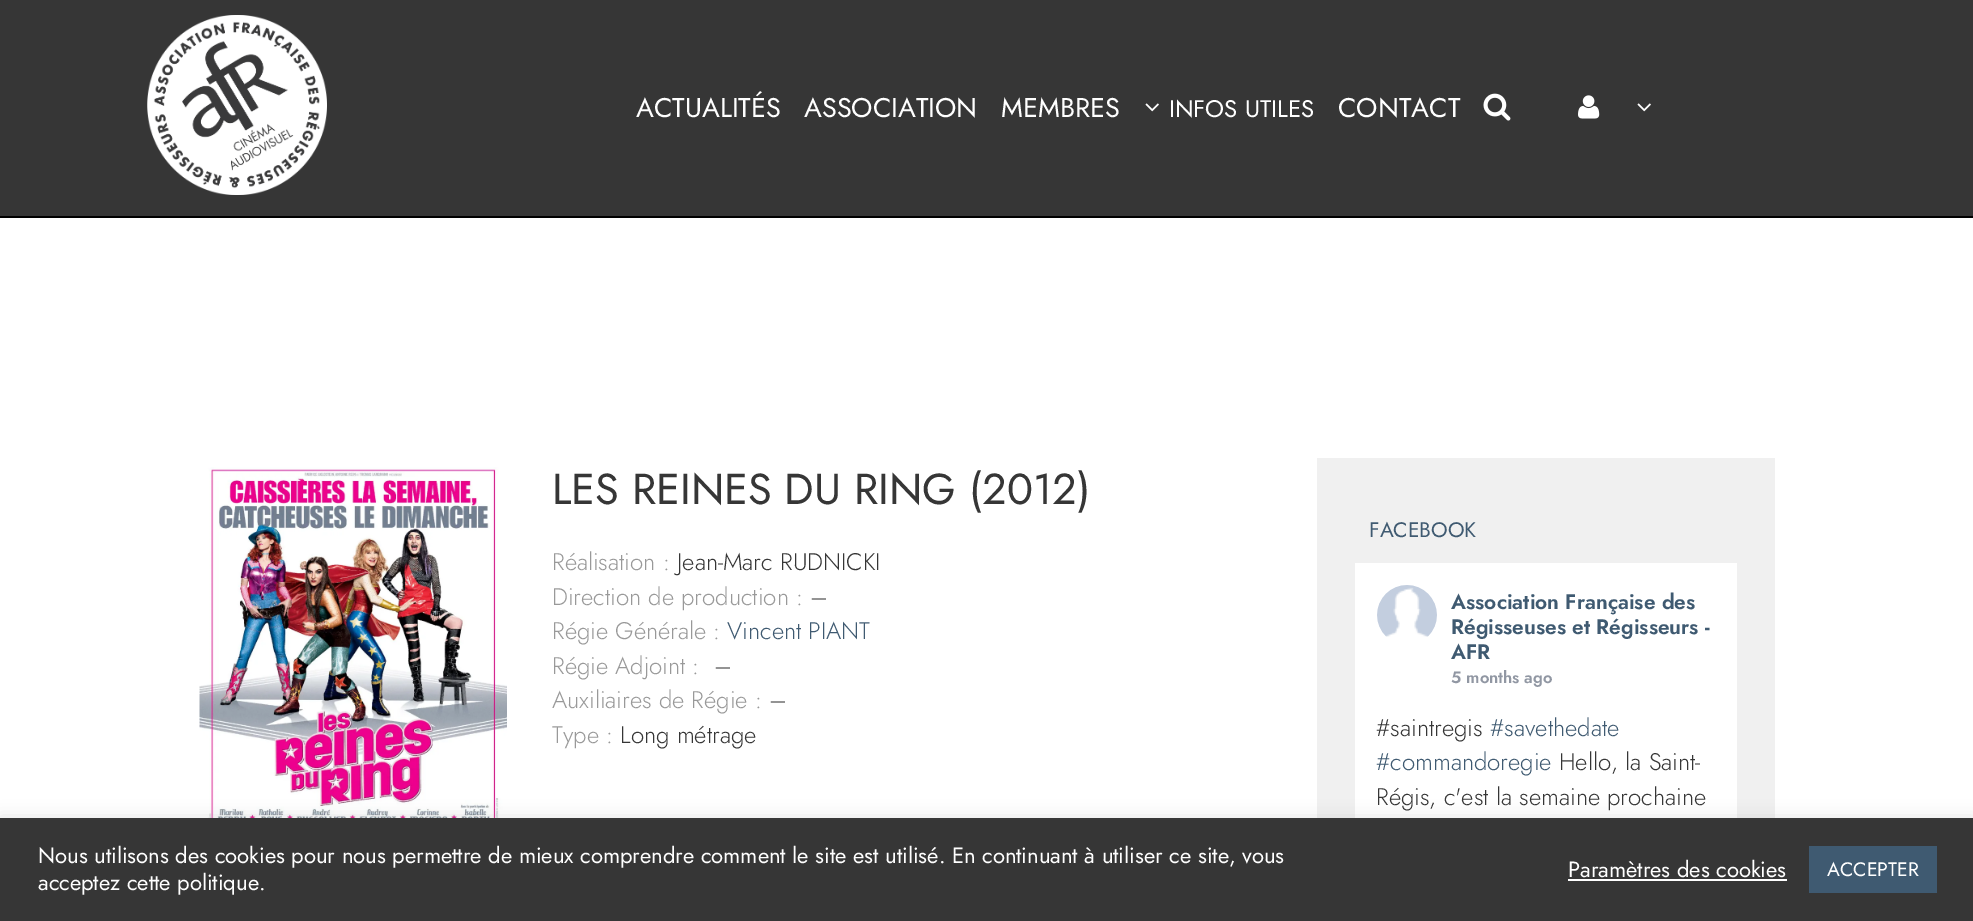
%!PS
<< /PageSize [1973 921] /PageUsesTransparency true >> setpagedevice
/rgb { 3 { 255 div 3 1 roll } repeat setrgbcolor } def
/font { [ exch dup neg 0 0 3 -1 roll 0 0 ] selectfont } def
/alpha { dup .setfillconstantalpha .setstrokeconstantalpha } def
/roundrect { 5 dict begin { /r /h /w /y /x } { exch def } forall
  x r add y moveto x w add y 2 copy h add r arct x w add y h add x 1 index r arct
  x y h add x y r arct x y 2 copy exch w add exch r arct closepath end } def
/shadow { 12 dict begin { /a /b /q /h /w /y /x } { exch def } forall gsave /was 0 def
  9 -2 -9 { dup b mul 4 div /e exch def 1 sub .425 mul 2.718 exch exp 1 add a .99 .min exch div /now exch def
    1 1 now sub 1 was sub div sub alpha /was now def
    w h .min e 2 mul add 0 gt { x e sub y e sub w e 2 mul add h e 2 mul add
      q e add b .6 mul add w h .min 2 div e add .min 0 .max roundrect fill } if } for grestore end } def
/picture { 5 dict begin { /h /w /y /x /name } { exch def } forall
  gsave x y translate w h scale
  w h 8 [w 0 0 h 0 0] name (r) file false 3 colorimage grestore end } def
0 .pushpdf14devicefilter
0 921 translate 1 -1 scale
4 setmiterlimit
255 255 255 rgb
0 0 1973 921 rectfill
54 54 54 rgb
0 0 1973 216 rectfill
0 0 0 rgb
0 216 1973 2 rectfill
(img/1.rgb) 147 15 180 180 picture
(img/2.rgb) 1145 103 14 9 picture
(img/3.rgb) 1483 93 28 28 picture
(img/4.rgb) 1578 95 22 24 picture
(img/2.rgb) 1637 103 14 9 picture
(img/5.rgb) 199 467 308 351 picture
240 240 240 rgb
1317 458 458 360 rectfill
255 255 255 rgb
1355 563 382 255 rectfill
(img/6.rgb) 1377 585 60 52 picture
172 171 171 rgb
0 816 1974 104 0 7.5 0.3 shadow
[
  [0 818 1973 103 54 54 54]
  [1568 879 219 2 255 255 255]
  [1809 846 128 47 63 90 113]
] { aload pop rgb rectfill } forall
/Jost-Regular 27 font
255 255 255 rgb
[
  [(ACTUALITÉS) 636 117]
  [(ASSOCIATION) 804 117]
  [(MEMBRES) 1001 117]
] { aload pop moveto show } forall
/Jost-Regular 24 font
1169 117 moveto (INFOS UTILES) show
/Jost-Regular 27 font
1338 117 moveto (CONTACT) show
/Jost-Regular 43.25 font
54 54 54 rgb
552 504 moveto (LES REINES DU RING \(2012\)) show
/Jost-Light 24 font
153 153 153 rgb
552 570 moveto (Réalisation :) show
54 54 54 rgb
677 570 moveto (Jean-Marc RUDNICKI) show
153 153 153 rgb
552 605 moveto (Direction de production :) show
54 54 54 rgb
810 605 moveto (–) show
153 153 153 rgb
552 639 moveto (Régie Générale :) show
63 90 113 rgb
727 639 moveto (Vincent PIANT) show
153 153 153 rgb
552 674 moveto (Régie Adjoint :) show
54 54 54 rgb
714 674 moveto (–) show
153 153 153 rgb
552 708 moveto (Auxiliaires de Régie :) show
54 54 54 rgb
769 708 moveto (–) show
153 153 153 rgb
552 743 moveto (Type :) show
54 54 54 rgb
620 743 moveto (Long métrage) show
/Jost-Regular 21 font
63 90 113 rgb
1369 537 moveto (FACEBOOK) show
/Jost-SemiBold 21 font
[
  [(Association Française des) 1451 609]
  [(Régisseuses et Régisseurs -) 1451 634]
  [(AFR) 1451 659]
] { aload pop moveto show } forall
/Jost-SemiBold 16.5 font
145 151 163 rgb
1451 683 moveto (5 months ago) show
/Jost-Light 24 font
54 54 54 rgb
1376 736 moveto (#saintregis) show
63 90 113 rgb
1490 736 moveto (#savethedate) show
1376 770 moveto (#commandoregie) show
54 54 54 rgb
1559 770 moveto (Hello, la Saint-) show
1376 805 moveto (Régis, c'est la semaine prochaine) show
/Jost-Regular 22 font
255 255 255 rgb
[
  [(Nous utilisons des cookies pour nous permettre de mieux comprendre comment le site est utilisé. En continuant à utiliser ce site, vous) 38 863]
  [(acceptez cette politique.) 38 890]
  [(Paramètres des cookies) 1568 877]
] { aload pop moveto show } forall
/Jost-Regular 19.5 font
1827 876 moveto (ACCEPTER) show
.poppdf14devicefilter showpage
